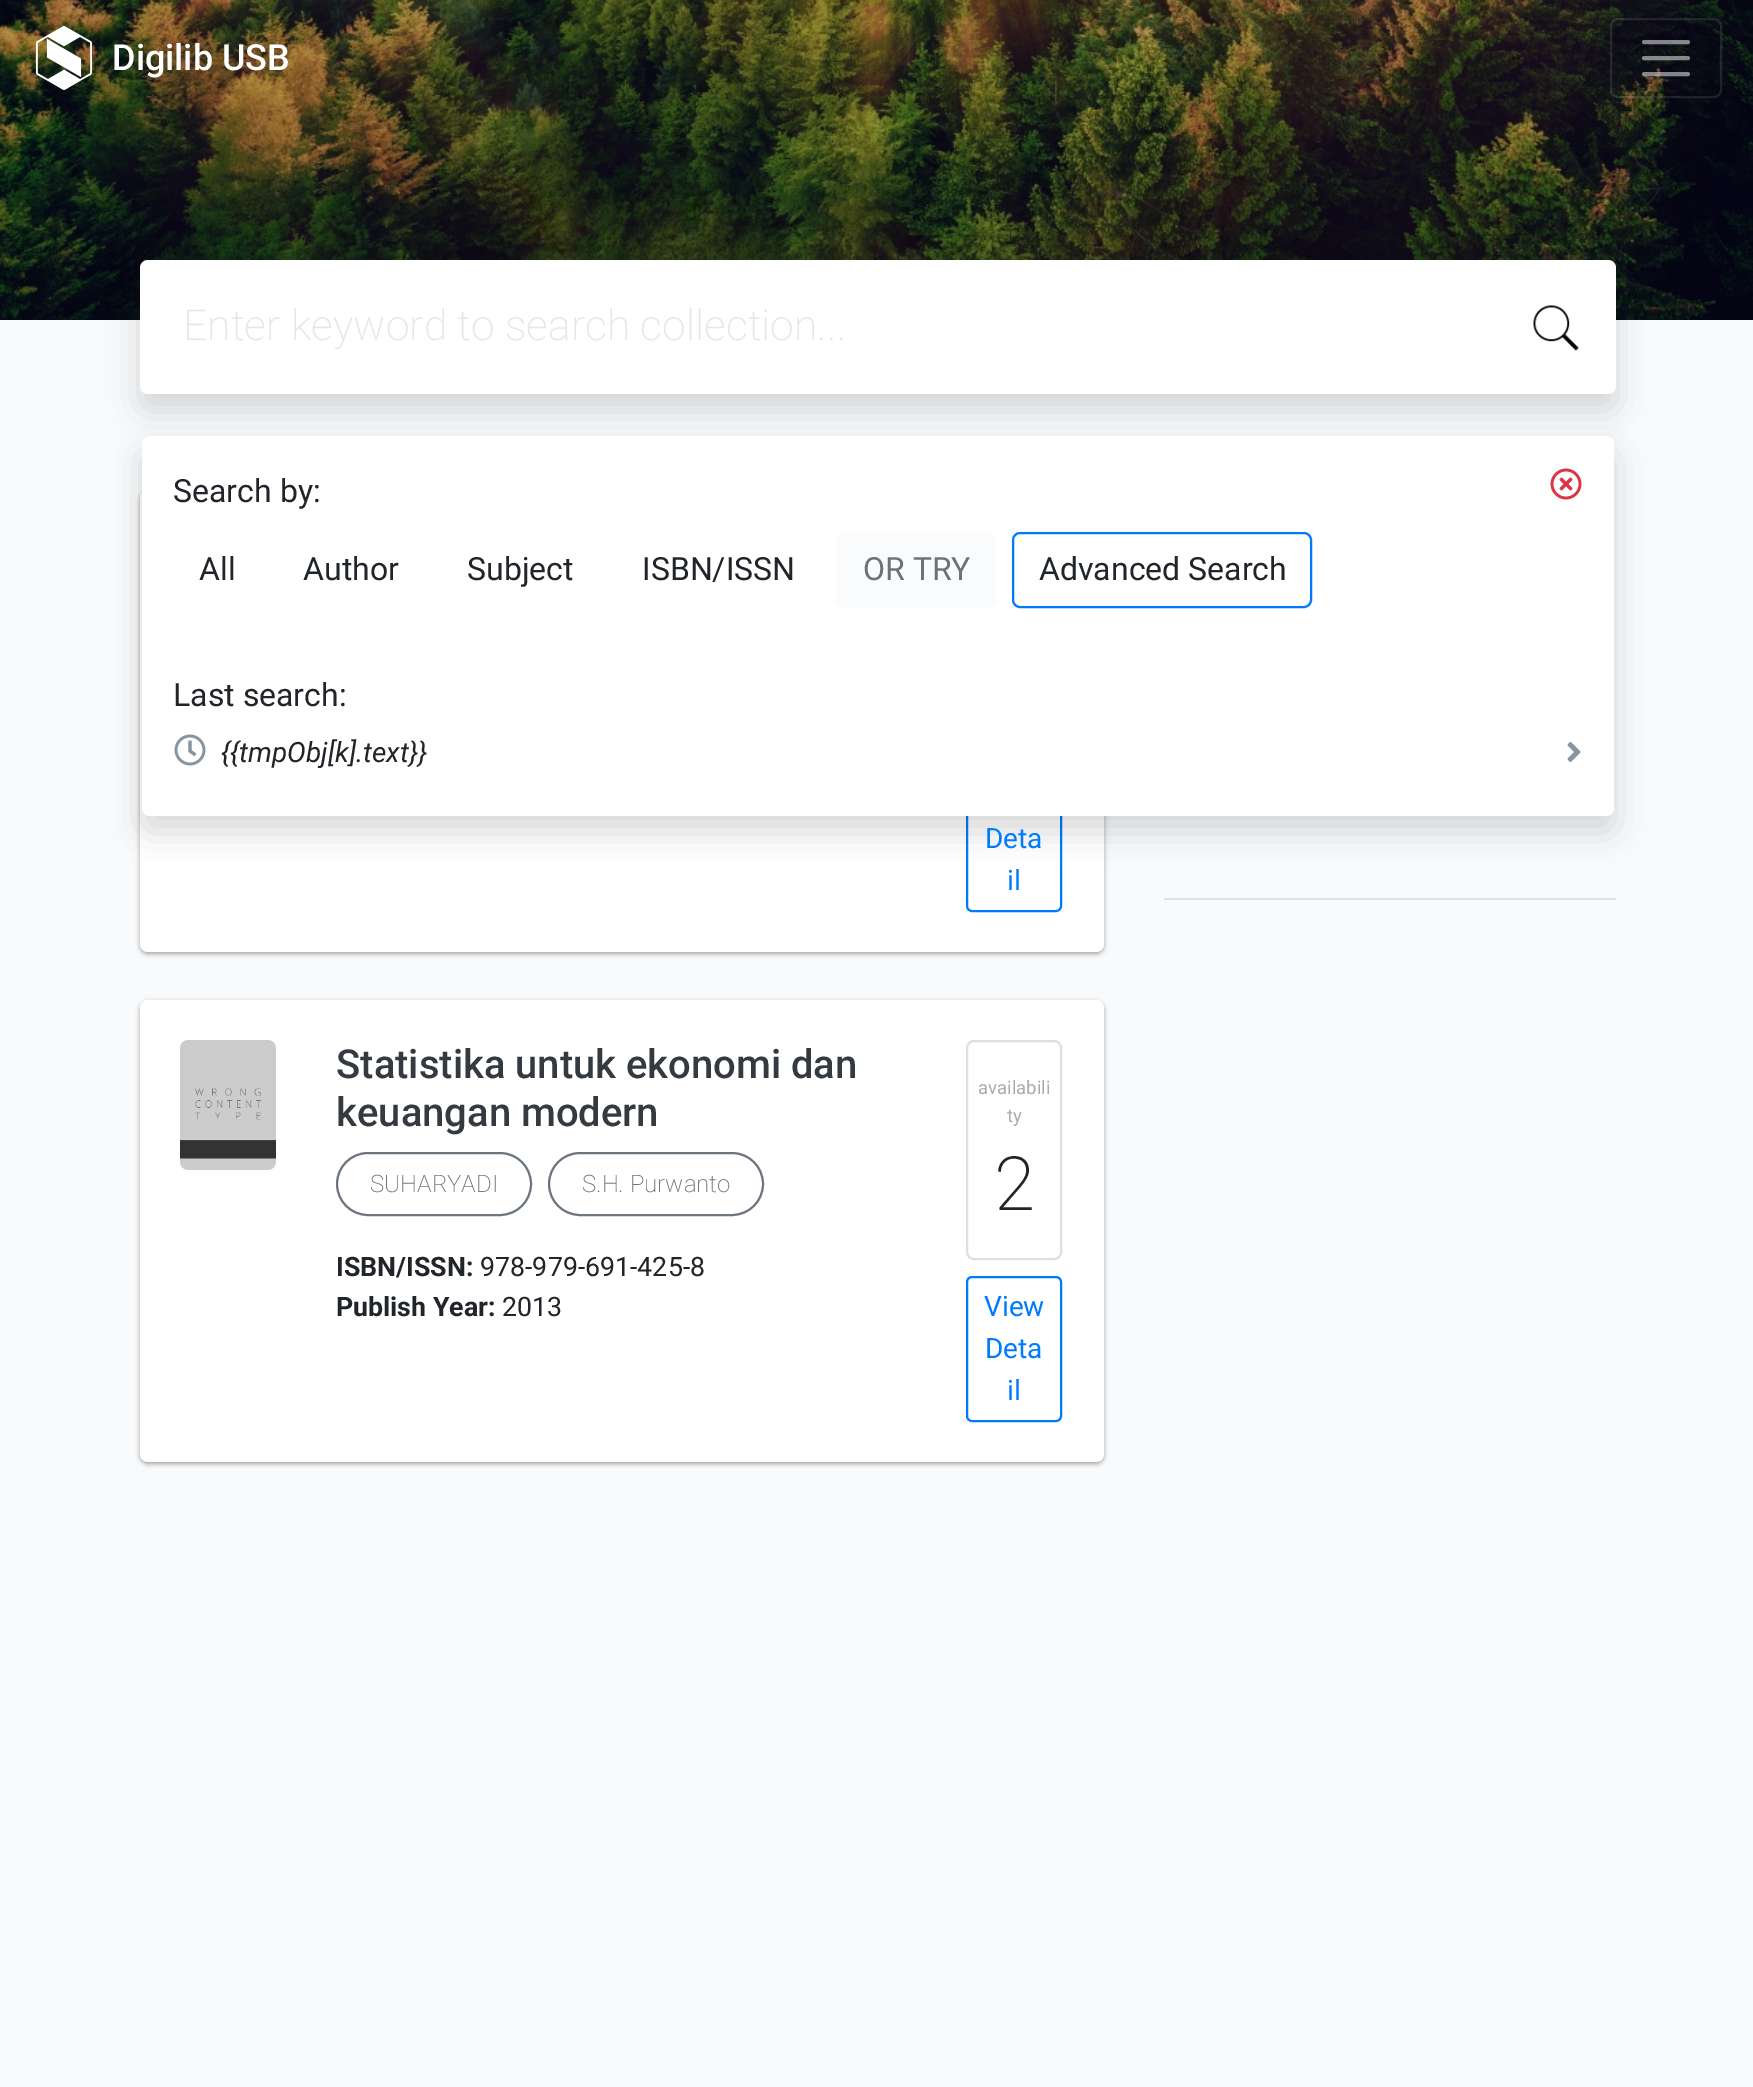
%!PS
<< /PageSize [1753 2087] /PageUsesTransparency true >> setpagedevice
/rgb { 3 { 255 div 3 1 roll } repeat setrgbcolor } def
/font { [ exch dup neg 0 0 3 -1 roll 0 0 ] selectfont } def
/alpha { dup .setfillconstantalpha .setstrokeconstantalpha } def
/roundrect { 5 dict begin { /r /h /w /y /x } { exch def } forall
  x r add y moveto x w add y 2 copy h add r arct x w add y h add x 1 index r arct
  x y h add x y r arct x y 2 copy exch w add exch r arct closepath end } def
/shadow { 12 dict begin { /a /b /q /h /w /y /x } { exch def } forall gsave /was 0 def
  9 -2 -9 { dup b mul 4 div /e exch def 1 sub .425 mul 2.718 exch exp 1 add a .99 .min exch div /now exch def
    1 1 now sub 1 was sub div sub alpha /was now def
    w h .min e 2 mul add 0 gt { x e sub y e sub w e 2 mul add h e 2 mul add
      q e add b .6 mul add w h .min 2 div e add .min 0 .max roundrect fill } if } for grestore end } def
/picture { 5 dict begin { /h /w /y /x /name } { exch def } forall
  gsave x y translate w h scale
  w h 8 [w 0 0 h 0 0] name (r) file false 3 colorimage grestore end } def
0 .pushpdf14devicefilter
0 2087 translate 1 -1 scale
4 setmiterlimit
248 250 252 rgb
0 0 1753 2087 rectfill
(img/1.rgb) 0 0 1753 320 picture
(img/2.rgb) 35 26 57 64 picture
0.1 alpha
255 255 255 rgb
2 setlinewidth
1611 19 110 78 7 roundrect stroke
0.5 alpha
4 setlinewidth
1 setlinecap
1644 42 moveto 1688 42 lineto 1644 58 moveto 1688 58 lineto 1644 74 moveto 1688 74 lineto stroke
1 alpha
0 0 0 rgb
140 276 1476 134 8 16 0.15 shadow
255 255 255 rgb
140 260 1476 134 8 roundrect fill
(img/3.rgb) 1533 305 46 46 picture
0 0 0 rgb
140 492 964 462 8 2 0.24 shadow
140 492 964 462 8 3 0.12 shadow
255 255 255 rgb
140 490 964 462 8 roundrect fill
0 123 255 rgb
2 setlinewidth
0 setlinecap
967 767 94 144 5 roundrect stroke
0 0 0 rgb
142 452 1472 380 8 16 0.15 shadow
255 255 255 rgb
142 436 1472 380 8 roundrect fill
(img/4.rgb) 1550 468 32 32 picture
250 251 252 rgb
836 532 160 76 8 roundrect fill
0 123 255 rgb
1013 533 298 74 7 roundrect stroke
(img/5.rgb) 174 734 32 32 picture
(img/6.rgb) 1567 742 14 20 picture
0 0 0 rgb
140 1002 964 462 8 2 0.24 shadow
140 1002 964 462 8 3 0.12 shadow
255 255 255 rgb
140 1000 964 462 8 roundrect fill
(img/7.rgb) 180 1040 96 130 picture
108 117 125 rgb
337 1153 194 62 31 roundrect stroke
549 1153 214 62 31 roundrect stroke
223 223 223 rgb
967 1041 94 218 7 roundrect stroke
0 123 255 rgb
967 1277 94 144 5 roundrect stroke
223 225 227 rgb
1164 898 452 2 rectfill
/Roboto-Medium 36 font
255 255 255 rgb
112 70 moveto (Digilib USB) show
/Roboto-ExtraLight 42.7 font
230 230 230 rgb
183 340 moveto (Enter keyword to search collection...) show
/Roboto-Regular 32 font
33 37 41 rgb
[
  [(Search by:) 173 502]
  [(All) 199 580]
  [(Author) 303 580]
  [(Subject) 467 580]
  [(ISBN/ISSN) 642 580]
] { aload pop moveto show } forall
111 113 116 rgb
863 580 moveto (OR TRY) show
33 37 41 rgb
1039 580 moveto (Advanced Search) show
173 706 moveto (Last search:) show
/Roboto-Italic 28 font
221 762 moveto ({{tmpObj[k].text}}) show
/Roboto-Regular 28 font
0 123 255 rgb
985 848 moveto (Deta) show
1007 890 moveto (il) show
/Roboto-Medium 40 font
52 58 64 rgb
336 1078 moveto (Statistika untuk ekonomi dan) show
336 1126 moveto (keuangan modern) show
/Roboto-ExtraLight 24 font
108 117 125 rgb
370 1192 moveto (SUHARYADI) show
582 1192 moveto (S.H. Purwanto) show
/Roboto-Bold 26.75 font
33 37 41 rgb
336 1276 moveto (ISBN/ISSN:) show
/Roboto-Regular 26.75 font
480 1276 moveto (978-979-691-425-8) show
/Roboto-Bold 26.75 font
336 1316 moveto (Publish Year:) show
/Roboto-Regular 26.75 font
502 1316 moveto (2013) show
/Roboto-Regular 18.5 font
170 170 170 rgb
978 1094 moveto (availabili) show
1007 1122 moveto (ty) show
/Roboto-ExtraLight 75 font
33 37 41 rgb
994 1210 moveto (2) show
/Roboto-Regular 28 font
0 123 255 rgb
[
  [(View) 984 1316]
  [(Deta) 985 1358]
  [(il) 1007 1400]
] { aload pop moveto show } forall
.poppdf14devicefilter showpage
